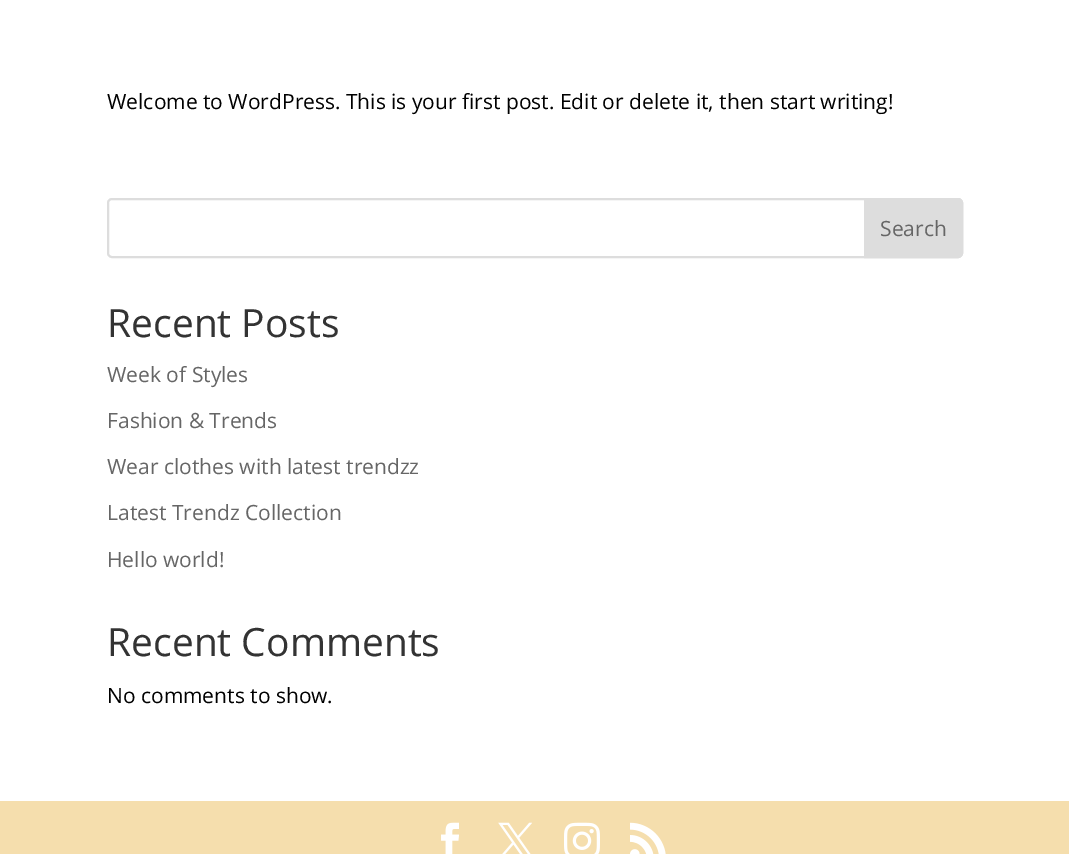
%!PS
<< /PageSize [1069 854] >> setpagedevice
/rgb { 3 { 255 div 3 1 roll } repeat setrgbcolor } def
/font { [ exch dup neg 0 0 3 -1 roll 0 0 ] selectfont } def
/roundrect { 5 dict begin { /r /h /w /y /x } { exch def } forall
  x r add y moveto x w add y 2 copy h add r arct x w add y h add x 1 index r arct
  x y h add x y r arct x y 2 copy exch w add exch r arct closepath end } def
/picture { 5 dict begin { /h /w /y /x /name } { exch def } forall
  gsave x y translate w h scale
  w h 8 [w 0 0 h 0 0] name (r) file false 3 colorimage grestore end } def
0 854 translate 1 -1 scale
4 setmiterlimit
255 255 255 rgb
0 0 1069 854 rectfill
221 221 221 rgb
2 setlinewidth
108 199 854 58 4 roundrect stroke
865 199 moveto 958 199 lineto 960 199 962 201 962 203 curveto 962 253 lineto 962 255 960 257 958 257 curveto 865 257 lineto closepath gsave fill grestore
stroke
245 222 173 rgb
0 801 1069 53 rectfill
(img/1.rgb) 441 822 18 32 picture
(img/2.rgb) 498 822 34 32 picture
(img/3.rgb) 564 822 36 32 picture
(img/4.rgb) 630 822 36 32 picture
/OpenSans-Regular 21 font
0 0 0 rgb
107 109 moveto (Welcome to WordPress. This is your first post. Edit or delete it, then start writing!) show
102 102 102 rgb
880 236 moveto (Search) show
/OpenSans-Regular 39 font
51 51 51 rgb
107 337 moveto (Recent Posts) show
/OpenSans-Regular 21 font
102 102 102 rgb
[
  [(Week of Styles) 107 382]
  [(Fashion & Trends) 107 428]
  [(Wear clothes with latest trendzz) 107 474]
  [(Latest Trendz Collection) 107 520]
  [(Hello world!) 107 567]
] { aload pop moveto show } forall
/OpenSans-Regular 39 font
51 51 51 rgb
107 656 moveto (Recent Comments) show
/OpenSans-Regular 21 font
0 0 0 rgb
107 703 moveto (No comments to show.) show
showpage
